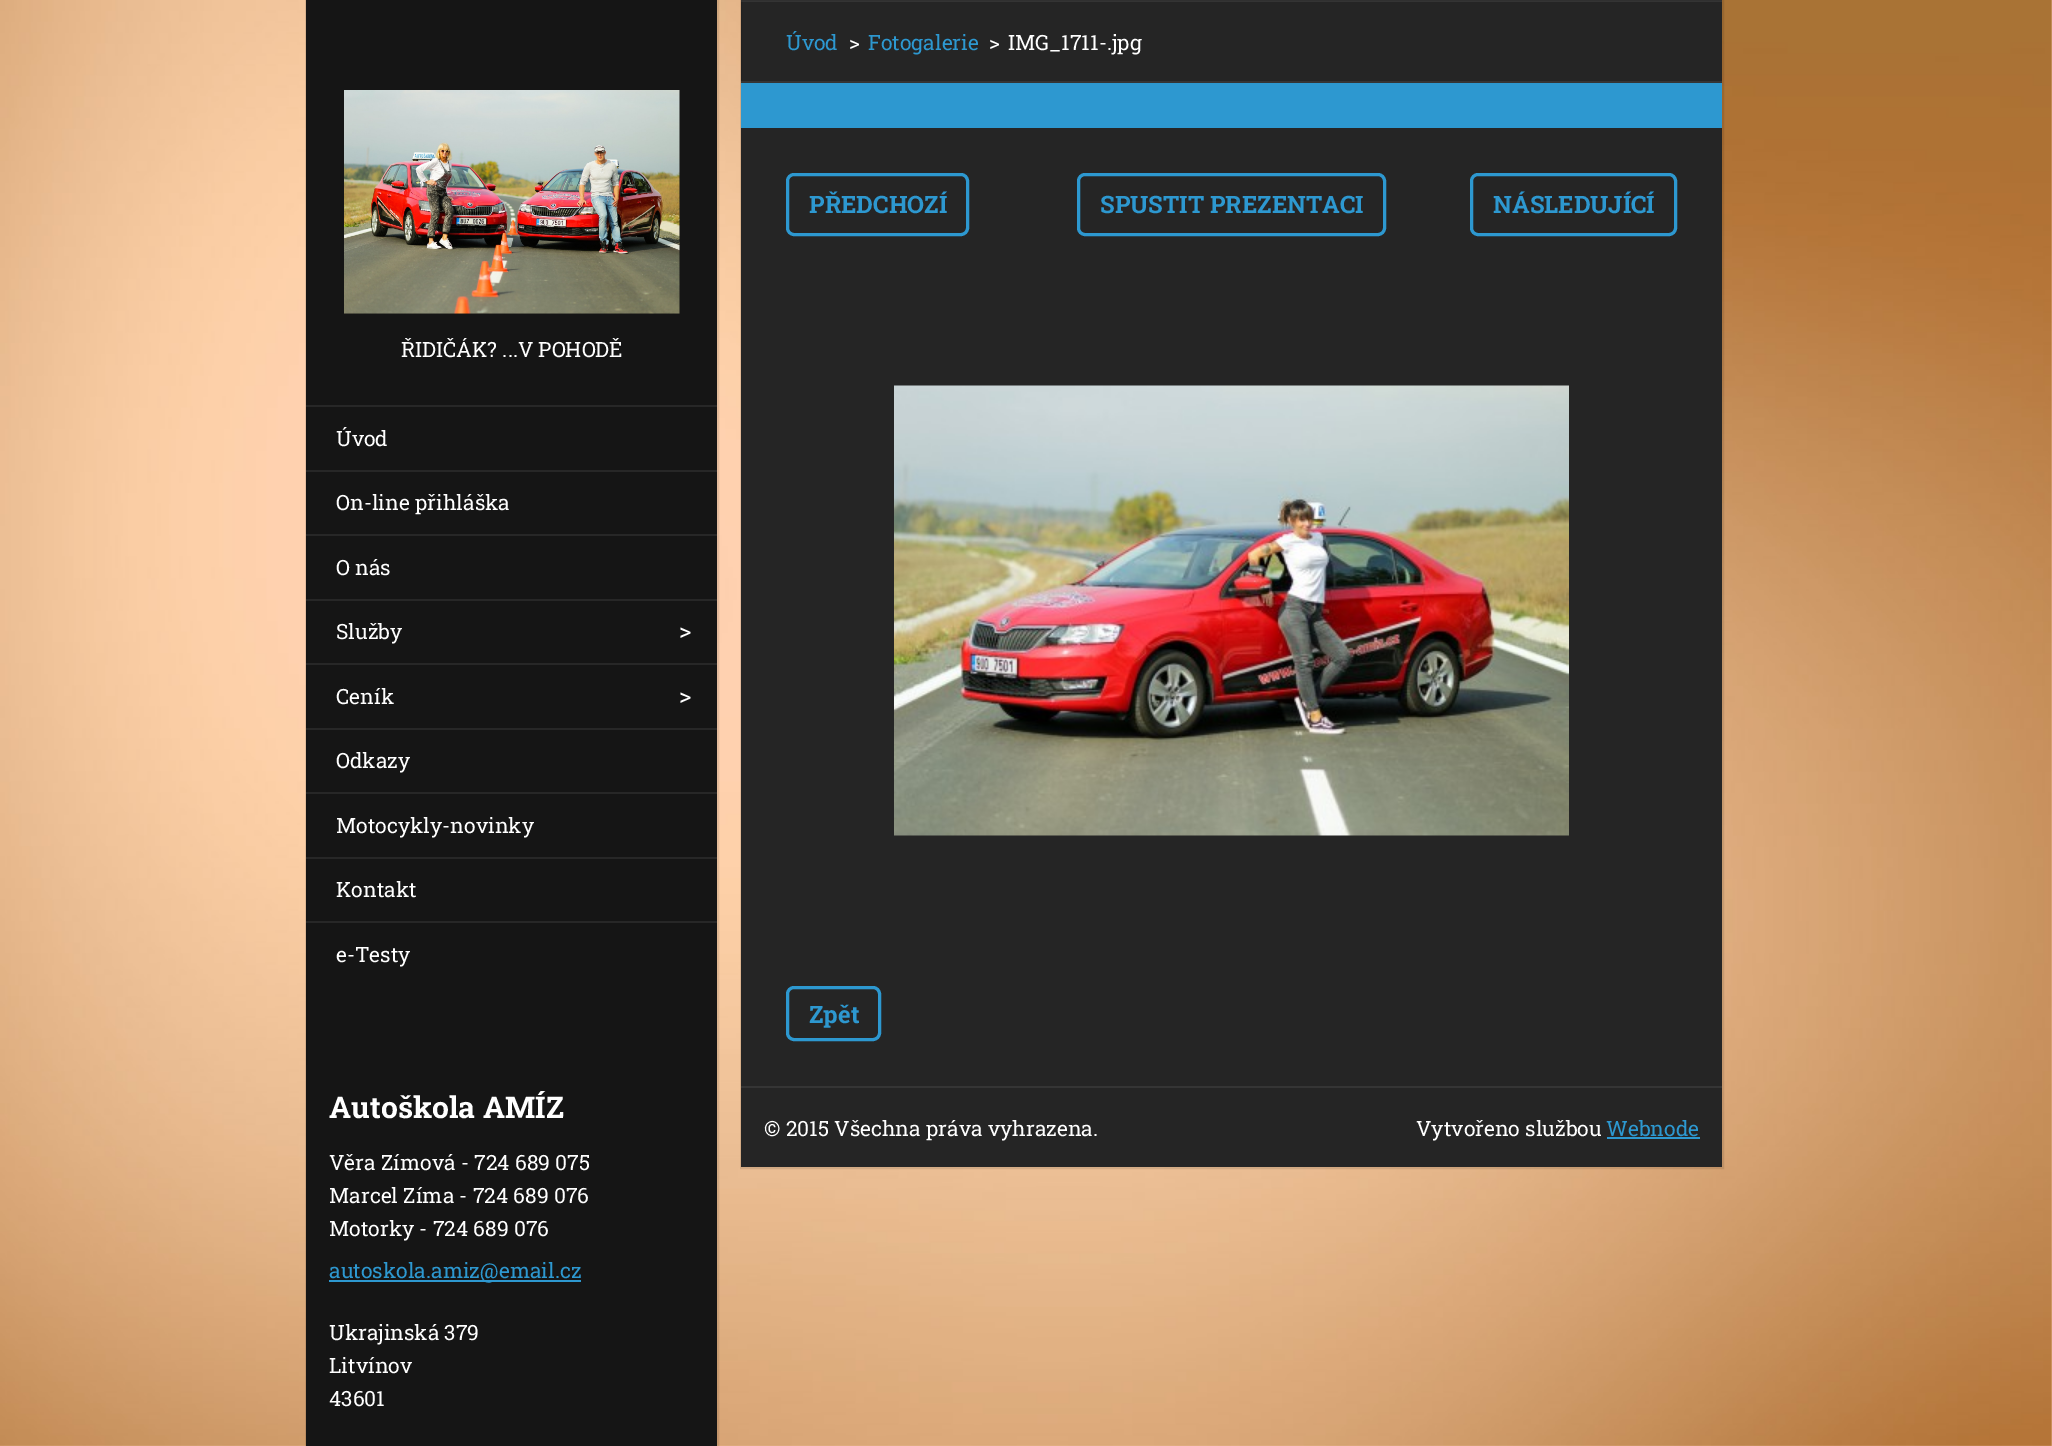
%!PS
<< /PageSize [2052 1446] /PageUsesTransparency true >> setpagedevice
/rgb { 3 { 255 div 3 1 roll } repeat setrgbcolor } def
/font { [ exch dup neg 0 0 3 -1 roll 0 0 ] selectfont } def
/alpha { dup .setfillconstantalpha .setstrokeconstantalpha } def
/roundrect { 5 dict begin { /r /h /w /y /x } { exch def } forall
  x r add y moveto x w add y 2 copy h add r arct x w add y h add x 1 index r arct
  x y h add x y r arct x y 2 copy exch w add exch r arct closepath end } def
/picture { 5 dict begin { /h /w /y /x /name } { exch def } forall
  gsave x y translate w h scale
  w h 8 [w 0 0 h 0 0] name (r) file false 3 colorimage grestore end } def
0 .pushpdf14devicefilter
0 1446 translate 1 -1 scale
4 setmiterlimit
254 208 175 rgb
0 0 2052 1446 rectfill
(img/1.rgb) 0 0 2052 1446 picture
21 21 21 rgb
306 407 411 658 rectfill
0.1 alpha
0 0 0 rgb
2 setlinewidth
306 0 412 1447 rectstroke
1 alpha
21 21 21 rgb
306 0 411 405 rectfill
(img/2.rgb) 344 90 336 224 picture
[
  [306 405 411 2 39 39 39]
  [306 470 411 2 39 39 39]
  [306 534 411 2 39 39 39]
  [306 599 411 2 39 39 39]
  [306 663 411 2 39 39 39]
  [306 728 411 2 39 39 39]
  [306 792 411 2 39 39 39]
  [306 857 411 2 39 39 39]
  [306 921 411 2 39 39 39]
  [306 1065 411 381 21 21 21]
  [329 1280 252 2 45 152 208]
  [741 2 981 79 37 37 37]
  [741 0 981 2 53 53 53]
] { aload pop rgb rectfill } forall
0.1 alpha
0 0 0 rgb
741 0 982 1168 rectstroke
1 alpha
[
  [741 81 981 2 53 53 53]
  [741 83 981 45 45 152 208]
  [741 128 981 958 37 37 37]
] { aload pop rgb rectfill } forall
45 152 208 rgb
3 setlinewidth
787.5 174.5 180 60 6.5 roundrect stroke
1078.5 174.5 306 60 6.5 roundrect stroke
1471.5 174.5 204 60 6.5 roundrect stroke
(img/3.rgb) 894 385 675 451 picture
787.5 987.5 92 52 6.5 roundrect stroke
[
  [741 1088 981 79 37 37 37]
  [741 1086 981 2 53 53 53]
  [1607 1137 93 2 45 152 208]
] { aload pop rgb rectfill } forall
/RobotoSlab-Regular 21 font
255 255 255 rgb
[
  [(ŘIDIČÁK? ...V POHODĚ) 401 357]
  [(Úvod) 336 446]
  [(On-line přihláška) 336 510]
  [(O nás) 336 575]
  [(Služby) 336 639]
] { aload pop moveto show } forall
/RobotoSlab-Regular 24 font
679 639 moveto (>) show
/RobotoSlab-Regular 21 font
336 704 moveto (Ceník) show
/RobotoSlab-Regular 24 font
679 704 moveto (>) show
/RobotoSlab-Regular 21 font
[
  [(Odkazy) 336 768]
  [(Motocykly-novinky) 336 833]
  [(Kontakt) 336 897]
  [(e-Testy) 336 962]
] { aload pop moveto show } forall
/RobotoSlab-Bold 30 font
329 1118 moveto (Autoškola AMÍZ) show
/RobotoSlab-Regular 21 font
[
  [(Věra Zímová - 724 689 075) 329 1170]
  [(Marcel Zíma - 724 689 076) 329 1203]
  [(Motorky - 724 689 076) 329 1236]
] { aload pop moveto show } forall
45 152 208 rgb
329 1278 moveto (autoskola.amiz@email.cz) show
255 255 255 rgb
[
  [(Ukrajinská 379) 329 1340]
  [(Litvínov) 329 1373]
  [(43601) 329 1406]
] { aload pop moveto show } forall
45 152 208 rgb
786 50 moveto (Úvod) show
255 255 255 rgb
849 50 moveto (>) show
45 152 208 rgb
868 50 moveto (Fotogalerie) show
255 255 255 rgb
989 50 moveto (>) show
1008 50 moveto (IMG_1711-.jpg) show
/RobotoSlab-Bold 24 font
45 152 208 rgb
[
  [(PŘEDCHOZÍ) 809 213]
  [(SPUSTIT PREZENTACI) 1100 213]
  [(NÁSLEDUJÍCÍ) 1493 213]
  [(Zpět) 809 1023]
] { aload pop moveto show } forall
/RobotoSlab-Regular 21 font
255 255 255 rgb
764 1136 moveto (© 2015 Všechna práva vyhrazena.) show
1416 1136 moveto (Vytvořeno službou) show
45 152 208 rgb
1606 1136 moveto (Webnode) show
.poppdf14devicefilter showpage
